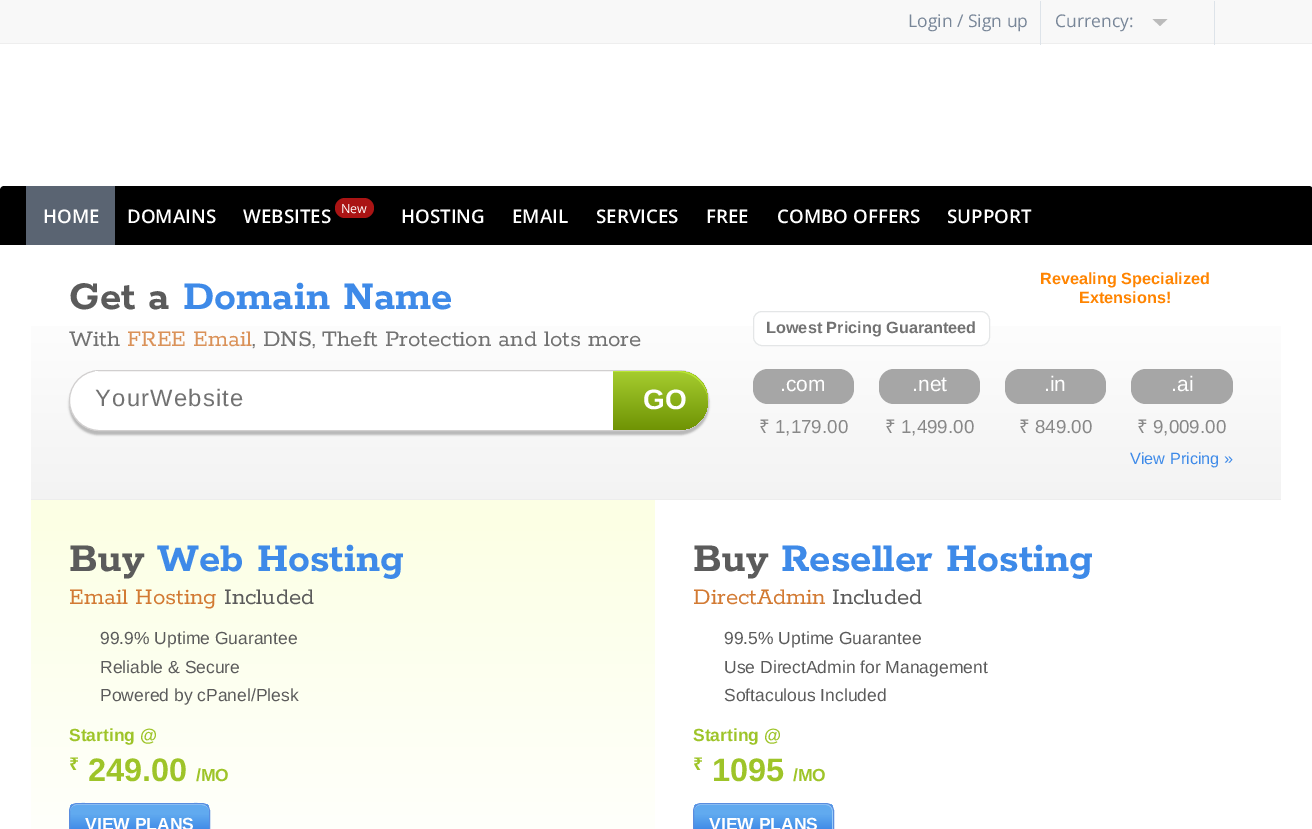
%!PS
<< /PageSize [1312 829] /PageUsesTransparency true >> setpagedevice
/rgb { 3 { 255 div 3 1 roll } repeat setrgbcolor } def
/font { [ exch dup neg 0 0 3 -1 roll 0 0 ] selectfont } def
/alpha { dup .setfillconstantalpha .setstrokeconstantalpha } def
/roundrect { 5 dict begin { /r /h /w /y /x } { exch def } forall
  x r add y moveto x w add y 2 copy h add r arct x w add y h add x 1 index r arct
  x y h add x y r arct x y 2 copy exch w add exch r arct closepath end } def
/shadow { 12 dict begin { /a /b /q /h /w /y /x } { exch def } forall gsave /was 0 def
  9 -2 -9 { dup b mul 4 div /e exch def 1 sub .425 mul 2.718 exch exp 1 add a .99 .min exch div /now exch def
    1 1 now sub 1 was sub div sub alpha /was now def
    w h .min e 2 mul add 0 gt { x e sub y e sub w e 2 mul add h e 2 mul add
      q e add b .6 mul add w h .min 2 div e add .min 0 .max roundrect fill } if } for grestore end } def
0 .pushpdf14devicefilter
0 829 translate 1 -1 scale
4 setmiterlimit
255 255 255 rgb
0 0 1312 829 rectfill
[
  [0 0 1312 43 248 248 248]
  [0 43 1312 1 238 238 238]
  [1040 1 1 44 221 227 233]
  [1214 1 1 44 221 227 233]
] { aload pop rgb rectfill } forall
187 187 187 rgb
1152.5 19 moveto 1167.5 19 lineto 1160 26 lineto closepath fill
0 0 0 rgb
4 186 moveto 1309 186 lineto 1311 186 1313 188 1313 190 curveto 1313 245 lineto 0 245 lineto 0 190 lineto 0 188 2 186 4 186 curveto closepath fill
90 100 114 rgb
26 186 89 59 rectfill
170 20 20 rgb
335 198 39 20 10 roundrect fill
gsave 31 326 moveto 1281 326 lineto 1281 499 lineto 31 499 lineto closepath clip newpath
<< /ShadingType 2 /ColorSpace /DeviceRGB /Coords [31 269 31 499] /Extend [true true] /Function << /FunctionType 3 /Domain [0 1] /Functions [<< /FunctionType 2 /Domain [0 1] /C0 [1 1 1] /C1 [1 1 1] /N 1 >> << /FunctionType 2 /Domain [0 1] /C0 [1 1 1] /C1 [0.953 0.953 0.953] /N 1 >>] /Bounds [0.05] /Encode [0 1 0 1] >> >> shfill grestore
237 237 237 rgb
31 499 1250 1 rectfill
183 183 183 rgb
69 374 640 61 30.5 1 1 shadow
255 255 255 rgb
69.5 370.5 639 60 30 roundrect gsave fill grestore
209 207 207 rgb
stroke
255 255 255 rgb
95 371 3 1 rectfill
gsave 613 371 moveto 678.5 371 lineto 695 371 708 384 708 400.5 curveto 708 417 695 430 678.5 430 curveto 613 430 lineto closepath clip newpath
<< /ShadingType 2 /ColorSpace /DeviceRGB /Coords [613 371 613 430] /Extend [true true] /Function << /FunctionType 3 /Domain [0 1] /Functions [<< /FunctionType 2 /Domain [0 1] /C0 [0.639 0.792 0.176] /C1 [0.639 0.792 0.176] /N 1 >> << /FunctionType 2 /Domain [0 1] /C0 [0.639 0.792 0.176] /C1 [0.435 0.576 0.016] /N 1 >>] /Bounds [0.05] /Encode [0 1 0 1] >> >> shfill grestore
186 230 54 rgb
613 371 moveto 613 372 lineto 678 372 lineto 694 372 708 386 708 401 curveto 708 385 695 371 678 371 curveto closepath fill
255 255 255 rgb
753.5 311.5 236 34 8.5 roundrect gsave fill grestore
228 230 231 rgb
stroke
166 166 166 rgb
753 369 101 35 15 roundrect fill
879 369 101 35 15 roundrect fill
1005 369 101 35 15 roundrect fill
1131 369 102 35 15 roundrect fill
gsave 31 500 moveto 655 500 lineto 655 829 lineto 31 829 lineto closepath clip newpath
<< /ShadingType 2 /ColorSpace /DeviceRGB /Coords [31 500 31 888] /Extend [true true] /Function << /FunctionType 3 /Domain [0 1] /Functions [<< /FunctionType 2 /Domain [0 1] /C0 [0.988 1 0.894] /C1 [0.988 1 0.894] /N 1 >> << /FunctionType 2 /Domain [0 1] /C0 [0.988 1 0.894] /C1 [1 1 1] /N 1 >>] /Bounds [0.05] /Encode [0 1 0 1] >> >> shfill grestore
gsave
69 803 141 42 8 roundrect clip newpath
gsave 70 804 moveto 209 804 lineto 209 829 lineto 70 829 lineto closepath clip newpath
<< /ShadingType 2 /ColorSpace /DeviceRGB /Coords [139 804 139 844] /Extend [true true] /Function << /FunctionType 3 /Domain [0 1] /Functions [<< /FunctionType 2 /Domain [0 1] /C0 [0.38 0.667 0.937] /C1 [0.38 0.667 0.937] /N 1 >> << /FunctionType 2 /Domain [0 1] /C0 [0.38 0.667 0.937] /C1 [0.137 0.435 0.886] /N 1 >>] /Bounds [0.25] /Encode [0 1 0 1] >> >> shfill grestore
grestore
154 205 249 rgb
76 805 moveto 202 805 lineto 206 805 209 808 209 811 curveto 209 799 187 804 182 804 curveto 97 804 lineto 92 804 70 799 70 811 curveto 70 808 73 805 76 805 curveto closepath fill
90 141 223 rgb
69.5 803.5 140 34 7.5 roundrect stroke
gsave
693 803 141 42 8 roundrect clip newpath
gsave 694 804 moveto 833 804 lineto 833 829 lineto 694 829 lineto closepath clip newpath
<< /ShadingType 2 /ColorSpace /DeviceRGB /Coords [763 804 763 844] /Extend [true true] /Function << /FunctionType 3 /Domain [0 1] /Functions [<< /FunctionType 2 /Domain [0 1] /C0 [0.38 0.667 0.937] /C1 [0.38 0.667 0.937] /N 1 >> << /FunctionType 2 /Domain [0 1] /C0 [0.38 0.667 0.937] /C1 [0.137 0.435 0.886] /N 1 >>] /Bounds [0.25] /Encode [0 1 0 1] >> >> shfill grestore
grestore
154 205 249 rgb
700 805 moveto 826 805 lineto 830 805 832 808 832 811 curveto 832 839 lineto 832 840 832 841 831 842 curveto 832 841 833 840 833 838 curveto 833 810 lineto 833 807 830 804 827 804 curveto 700 804 lineto 697 804 694 807 694 810 curveto 694 811 lineto 694 808 697 805 700 805 curveto closepath fill
90 141 223 rgb
693.5 803.5 140 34 7.5 roundrect stroke
/OpenSans-Regular 17.5 font
120 134 152 rgb
908 27 moveto (Login / Sign up) show
1055 27 moveto (Currency:) show
/OpenSans-SemiBold 18.75 font
255 255 255 rgb
[
  [(HOME) 43 223]
  [(DOMAINS) 127 223]
  [(WEBSITES) 243 223]
] { aload pop moveto show } forall
/OpenSans-Regular 12.5 font
341 213 moveto (New) show
/OpenSans-SemiBold 18.75 font
[
  [(HOSTING) 401 223]
  [(EMAIL) 512 223]
  [(SERVICES) 596 223]
  [(FREE) 706 223]
  [(COMBO OFFERS) 777 223]
  [(SUPPORT) 947 223]
] { aload pop moveto show } forall
/Rokkitt-Bold 43.75 font
91 91 91 rgb
69 309 moveto (Get a) show
62 138 232 rgb
183 309 moveto (Domain Name) show
/Rokkitt-Regular 25 font
114 114 114 rgb
69 346 moveto (With) show
218 146 89 rgb
127 346 moveto (FREE Email) show
114 114 114 rgb
252 346 moveto (, DNS, Theft Protection and lots more) show
/LiberationSans-Regular 23.75 font
95 406 moveto 1.25 0 (YourWebsite) ashow
/LiberationSans-Bold 28 font
255 255 255 rgb
643 409 moveto (GO) show
/LiberationSans-Bold 16.25 font
255 132 0 rgb
1040 284 moveto (Revealing Specialized) show
1079 303 moveto (Extensions!) show
114 114 114 rgb
766 333 moveto (Lowest Pricing Guaranteed) show
/LiberationSans-Regular 21 font
255 255 255 rgb
780 391 moveto (.com) show
/NotoSans-Regular 18.75 font
136 136 136 rgb
759 433 moveto (₹) show
/LiberationSans-Regular 18.75 font
775 433 moveto (1,179.00) show
/LiberationSans-Regular 21 font
255 255 255 rgb
912 391 moveto (.net) show
/NotoSans-Regular 18.75 font
136 136 136 rgb
885 433 moveto (₹) show
/LiberationSans-Regular 18.75 font
901 433 moveto (1,499.00) show
/LiberationSans-Regular 21 font
255 255 255 rgb
1044 391 moveto (.in) show
/NotoSans-Regular 18.75 font
136 136 136 rgb
1019 433 moveto (₹) show
/LiberationSans-Regular 18.75 font
1035 433 moveto (849.00) show
/LiberationSans-Regular 21 font
255 255 255 rgb
1171 391 moveto (.ai) show
/NotoSans-Regular 18.75 font
136 136 136 rgb
1137 433 moveto (₹) show
/LiberationSans-Regular 18.75 font
1153 433 moveto (9,009.00) show
/LiberationSans-Regular 16.25 font
62 138 232 rgb
1130 464 moveto (View Pricing ») show
/Rokkitt-Bold 43.75 font
91 91 91 rgb
69 571 moveto (Buy) show
62 138 232 rgb
157 571 moveto (Web Hosting) show
/Rokkitt-Regular 25 font
210 122 51 rgb
69 604 moveto (Email Hosting) show
91 91 91 rgb
224 604 moveto (Included) show
/LiberationSans-Regular 17.5 font
[
  [(99.9% Uptime Guarantee) 100 644]
  [(Reliable & Secure) 100 673]
  [(Powered by cPanel/Plesk) 100 701]
] { aload pop moveto show } forall
/LiberationSans-Bold 17.5 font
158 196 41 rgb
69 741 moveto (Starting @) show
/NotoSans-Bold 17.5 font
69 770 moveto (₹) show
/LiberationSans-Bold 32.5 font
88 781 moveto (249.00) show
/LiberationSans-Bold 17.5 font
196 781 moveto (/MO) show
255 255 255 rgb
85 830 moveto (VIEW PLANS) show
/Rokkitt-Bold 43.75 font
91 91 91 rgb
693 571 moveto (Buy) show
62 138 232 rgb
781 571 moveto (Reseller Hosting) show
/Rokkitt-Regular 25 font
210 122 51 rgb
693 604 moveto (DirectAdmin) show
91 91 91 rgb
832 604 moveto (Included) show
/LiberationSans-Regular 17.5 font
[
  [(99.5% Uptime Guarantee) 724 644]
  [(Use DirectAdmin for Management) 724 673]
  [(Softaculous Included) 724 701]
] { aload pop moveto show } forall
/LiberationSans-Bold 17.5 font
158 196 41 rgb
693 741 moveto (Starting @) show
/NotoSans-Bold 17.5 font
693 770 moveto (₹) show
/LiberationSans-Bold 32.5 font
712 781 moveto (1095) show
/LiberationSans-Bold 17.5 font
793 781 moveto (/MO) show
255 255 255 rgb
709 830 moveto (VIEW PLANS) show
.poppdf14devicefilter showpage
